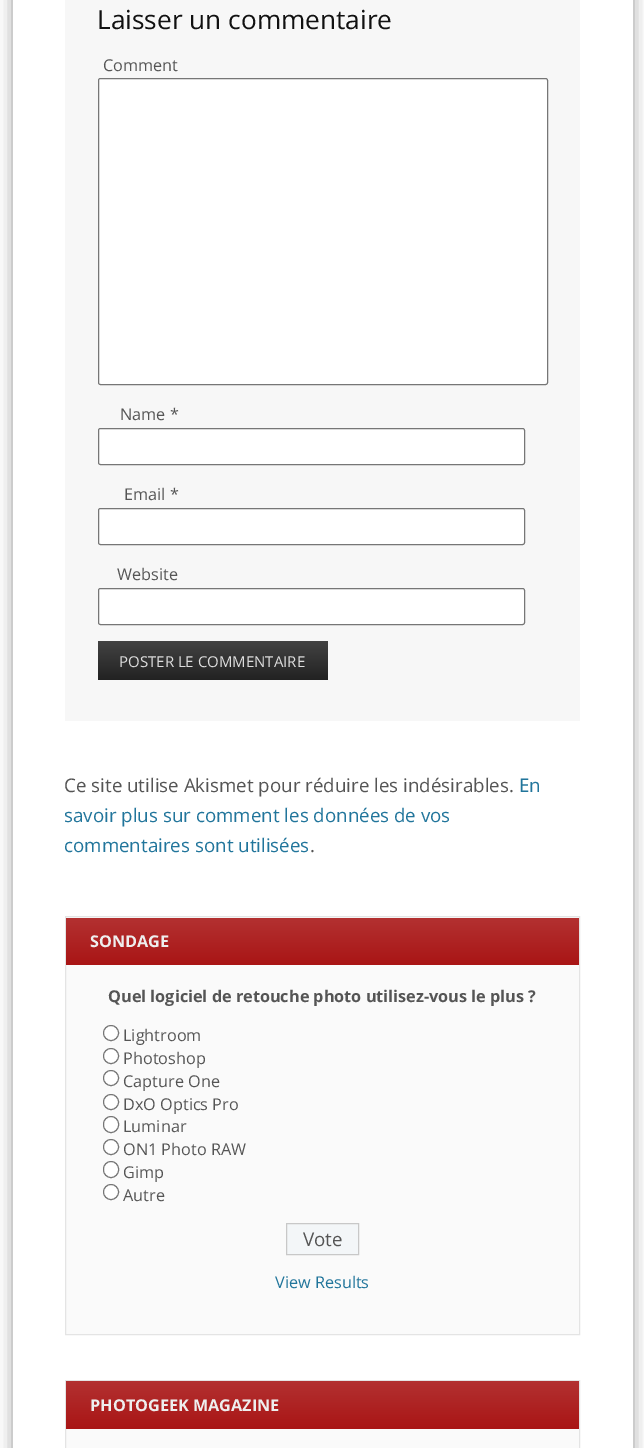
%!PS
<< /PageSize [644 1448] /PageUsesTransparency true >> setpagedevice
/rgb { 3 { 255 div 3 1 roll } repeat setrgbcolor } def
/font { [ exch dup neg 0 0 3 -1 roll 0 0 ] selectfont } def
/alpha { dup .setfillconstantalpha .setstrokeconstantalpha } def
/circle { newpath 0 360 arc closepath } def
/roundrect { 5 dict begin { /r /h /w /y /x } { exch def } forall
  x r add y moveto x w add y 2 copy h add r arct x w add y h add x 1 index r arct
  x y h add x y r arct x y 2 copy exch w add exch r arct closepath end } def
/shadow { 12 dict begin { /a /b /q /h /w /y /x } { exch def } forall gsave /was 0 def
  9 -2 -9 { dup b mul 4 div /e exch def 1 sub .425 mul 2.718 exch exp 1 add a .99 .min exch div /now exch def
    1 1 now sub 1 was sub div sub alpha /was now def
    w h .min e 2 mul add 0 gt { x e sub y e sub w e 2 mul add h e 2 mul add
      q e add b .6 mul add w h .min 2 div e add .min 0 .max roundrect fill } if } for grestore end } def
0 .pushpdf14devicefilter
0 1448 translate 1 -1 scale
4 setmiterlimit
255 255 255 rgb
0 0 644 1448 rectfill
0 0 0 rgb
13 -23 620 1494 0 7.5 0.4 shadow
255 255 255 rgb
13 0 620 1448 rectfill
247 247 247 rgb
65 0 515 721 rectfill
255 255 255 rgb
98.5 78.5 449 306 2 roundrect gsave fill grestore
118 118 118 rgb
stroke
255 255 255 rgb
98.5 428.5 426 36 2 roundrect gsave fill grestore
118 118 118 rgb
stroke
255 255 255 rgb
98.5 508.5 426 36 2 roundrect gsave fill grestore
118 118 118 rgb
stroke
255 255 255 rgb
98.5 588.5 426 36 2 roundrect gsave fill grestore
118 118 118 rgb
stroke
gsave 98 641 moveto 328 641 lineto 328 680 lineto 98 680 lineto closepath clip newpath
<< /ShadingType 2 /ColorSpace /DeviceRGB /Coords [213 641 213 680] /Extend [true true] /Function << /FunctionType 2 /Domain [0 1] /C0 [0.263 0.263 0.263] /C1 [0.133 0.133 0.133] /N 1 >> >> shfill grestore
250 250 250 rgb
65.5 916.5 moveto 579.5 916.5 lineto 579.5 1334.5 lineto 65.5 1334.5 lineto closepath gsave fill grestore
228 228 228 rgb
stroke
gsave 66 918 moveto 579 918 lineto 579 965 lineto 66 965 lineto closepath clip newpath
<< /ShadingType 2 /ColorSpace /DeviceRGB /Coords [323 918 323 965] /Extend [true true] /Function << /FunctionType 2 /Domain [0 1] /C0 [0.702 0.192 0.192] /C1 [0.663 0.082 0.082] /N 1 >> >> shfill grestore
255 255 255 rgb
111 1033 7.5 circle gsave fill grestore
118 118 118 rgb
stroke
255 255 255 rgb
111 1056 7.5 circle gsave fill grestore
118 118 118 rgb
stroke
255 255 255 rgb
111 1078 7.5 circle gsave fill grestore
118 118 118 rgb
stroke
255 255 255 rgb
111 1102 7.5 circle gsave fill grestore
118 118 118 rgb
stroke
255 255 255 rgb
103.5 1116.5 15 16 7.5 roundrect gsave fill grestore
118 118 118 rgb
stroke
255 255 255 rgb
111 1147 7.5 circle gsave fill grestore
118 118 118 rgb
stroke
255 255 255 rgb
103.5 1161.5 15 16 7.5 roundrect gsave fill grestore
118 118 118 rgb
stroke
255 255 255 rgb
111 1192 7.5 circle gsave fill grestore
118 118 118 rgb
stroke
243 246 248 rgb
286.5 1223.5 moveto 358.5 1223.5 lineto 358.5 1254.5 lineto 286.5 1254.5 lineto closepath gsave fill grestore
200 200 200 rgb
stroke
250 250 250 rgb
66 1429 513 19 rectfill
228 228 228 rgb
65.5 1380.5 514 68 rectstroke
gsave 66 1381 moveto 579 1381 lineto 579 1429 lineto 66 1429 lineto closepath clip newpath
<< /ShadingType 2 /ColorSpace /DeviceRGB /Coords [323 1381 323 1429] /Extend [true true] /Function << /FunctionType 2 /Domain [0 1] /C0 [0.702 0.192 0.192] /C1 [0.663 0.082 0.082] /N 1 >> >> shfill grestore
/OpenSans-Regular 26.25 font
17 17 17 rgb
97 29 moveto (Laisser un commentaire) show
/OpenSans-Regular 16.25 font
85 85 85 rgb
[
  [(Comment) 103 71]
  [(Name *) 120 420]
  [(Email *) 124 500]
  [(Website) 117 580]
] { aload pop moveto show } forall
/OpenSans-Regular 15 font
221 221 221 rgb
119 667 moveto (POSTER LE COMMENTAIRE) show
/OpenSans-Regular 18.75 font
85 85 85 rgb
64 792 moveto (Ce site utilise Akismet pour réduire les indésirables.) show
33 117 155 rgb
[
  [(En) 519 792]
  [(savoir plus sur comment les données de vos) 64 822]
  [(commentaires sont utilisées) 64 852]
] { aload pop moveto show } forall
85 85 85 rgb
310 852 moveto (.) show
/OpenSans-Bold 16.25 font
238 238 238 rgb
90 947 moveto (SONDAGE) show
85 85 85 rgb
108 1002 moveto (Quel logiciel de retouche photo utilisez-vous le plus ?) show
/OpenSans-Regular 16.25 font
[
  [(Lightroom) 123 1041]
  [(Photoshop) 123 1064]
  [(Capture One) 123 1087]
  [(DxO Optics Pro) 123 1110]
  [(Luminar) 123 1132]
  [(ON1 Photo RAW) 123 1155]
  [(Gimp) 123 1178]
  [(Autre) 123 1201]
] { aload pop moveto show } forall
/OpenSans-Regular 18.75 font
303 1246 moveto (Vote) show
/OpenSans-Regular 16.25 font
33 117 155 rgb
275 1288 moveto (View Results) show
/OpenSans-Bold 16.25 font
238 238 238 rgb
90 1411 moveto (PHOTOGEEK MAGAZINE) show
.poppdf14devicefilter showpage
